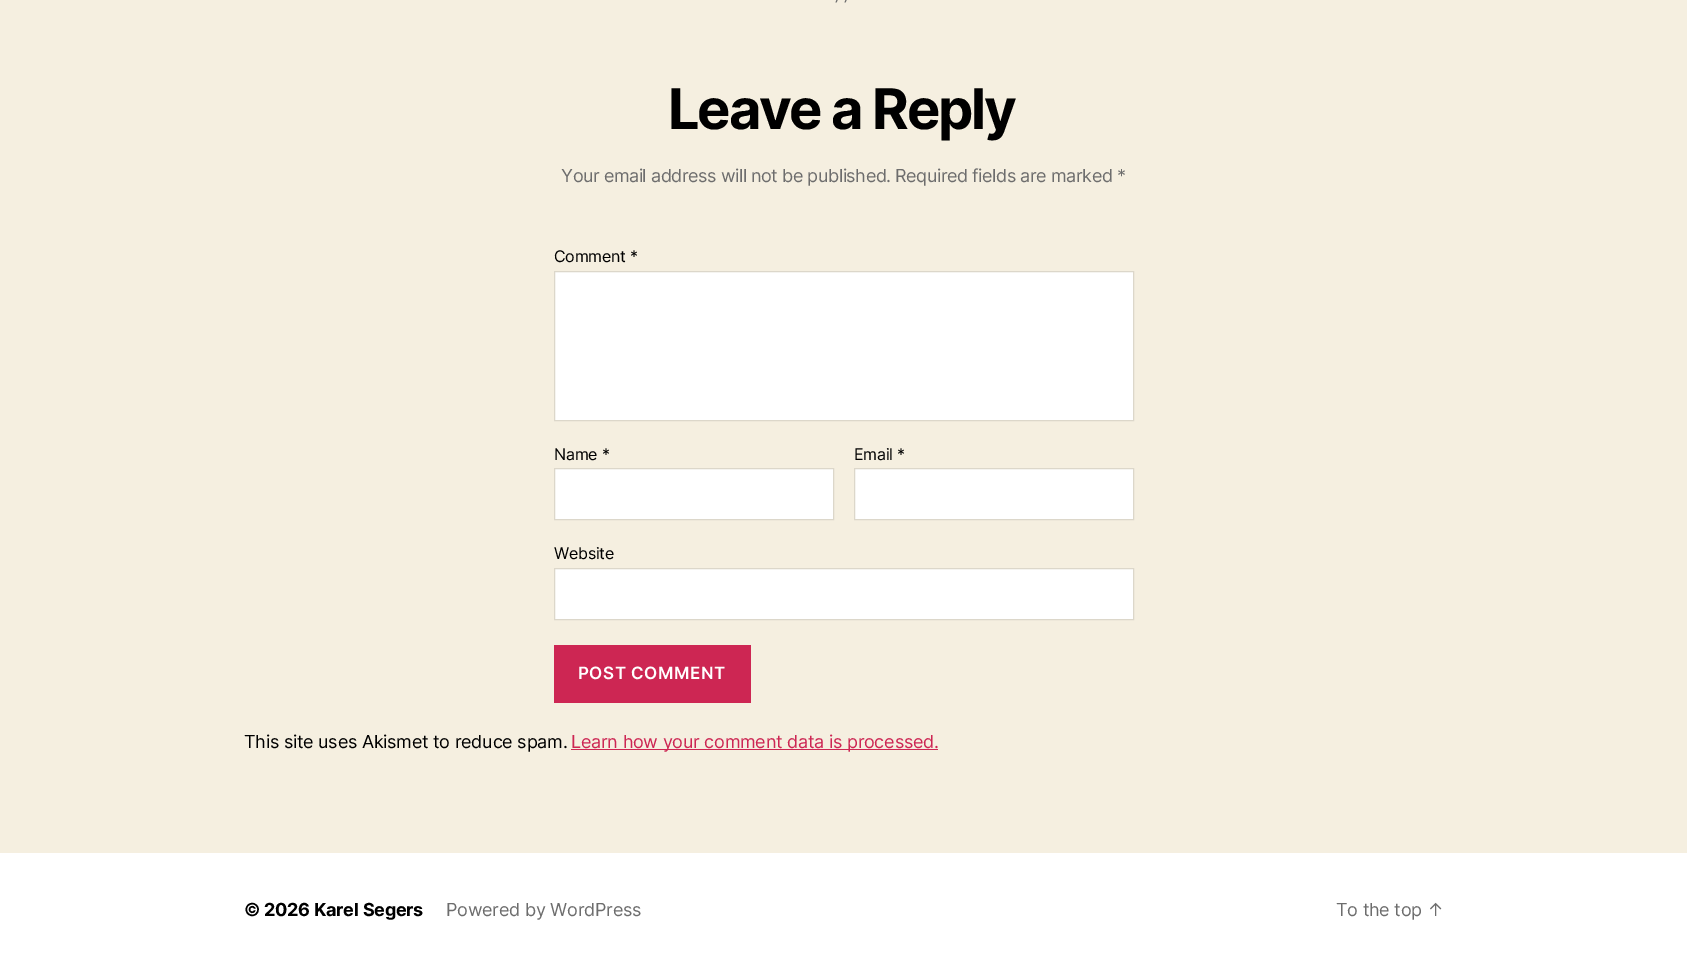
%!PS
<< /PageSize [1687 966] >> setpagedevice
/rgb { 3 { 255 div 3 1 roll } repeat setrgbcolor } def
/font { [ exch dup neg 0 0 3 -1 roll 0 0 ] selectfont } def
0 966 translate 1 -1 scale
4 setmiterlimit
245 239 224 rgb
0 0 1687 966 rectfill
109 109 109 rgb
841.5 -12.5 moveto 842.5 -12 lineto 836.5 2.5 lineto 835.5 2.5 lineto closepath 850.5 -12.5 moveto 851.5 -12 lineto 845.5 2.5 lineto 844.5 2.5 lineto closepath fill
255 255 255 rgb
554.5 271.5 moveto 1133.5 271.5 lineto 1133.5 420.5 lineto 554.5 420.5 lineto closepath gsave fill grestore
220 215 202 rgb
stroke
255 255 255 rgb
554.5 468.5 moveto 833.5 468.5 lineto 833.5 519.5 lineto 554.5 519.5 lineto closepath gsave fill grestore
220 215 202 rgb
stroke
255 255 255 rgb
854.5 468.5 moveto 1133.5 468.5 lineto 1133.5 519.5 lineto 854.5 519.5 lineto closepath gsave fill grestore
220 215 202 rgb
stroke
255 255 255 rgb
554.5 568.5 moveto 1133.5 568.5 lineto 1133.5 619.5 lineto 554.5 619.5 lineto closepath gsave fill grestore
220 215 202 rgb
stroke
[
  [554 645 197 58 205 38 83]
  [571 749 367 1 205 38 83]
  [0 853 1687 113 255 255 255]
] { aload pop rgb rectfill } forall
/Inter-Bold 56 font
0 0 0 rgb
668 129 moveto -2.3 0 (Leave a Reply) ashow
/Inter-Regular 18 font
109 109 109 rgb
561 182 moveto -0.45 0 (Your email address will not be published. Required fields are marked *) ashow
/Inter-Regular 16 font
0 0 0 rgb
554 262 moveto -0.25 0 (Comment *) ashow
554 460 moveto -0.25 0 (Name *) ashow
854 460 moveto -0.25 0 (Email *) ashow
554 559 moveto -0.25 0 (Website) ashow
/Inter-SemiBold 17 font
255 255 255 rgb
578 679 moveto 0.5 0 (POST COMMENT) ashow
/Inter-Regular 18 font
0 0 0 rgb
244 748 moveto -0.25 0 (This site uses Akismet to reduce spam.) ashow
205 38 83 rgb
571 748 moveto -0.25 0 (Learn how your comment data is processed.) ashow
/Inter-Bold 18 font
0 0 0 rgb
244 916 moveto -0.25 0 (© 2026 Karel Segers) ashow
/Inter-Regular 18 font
109 109 109 rgb
446 916 moveto -0.25 0 (Powered by WordPress) ashow
1336 916 moveto -0.25 0 (To the top ↑) ashow
showpage
